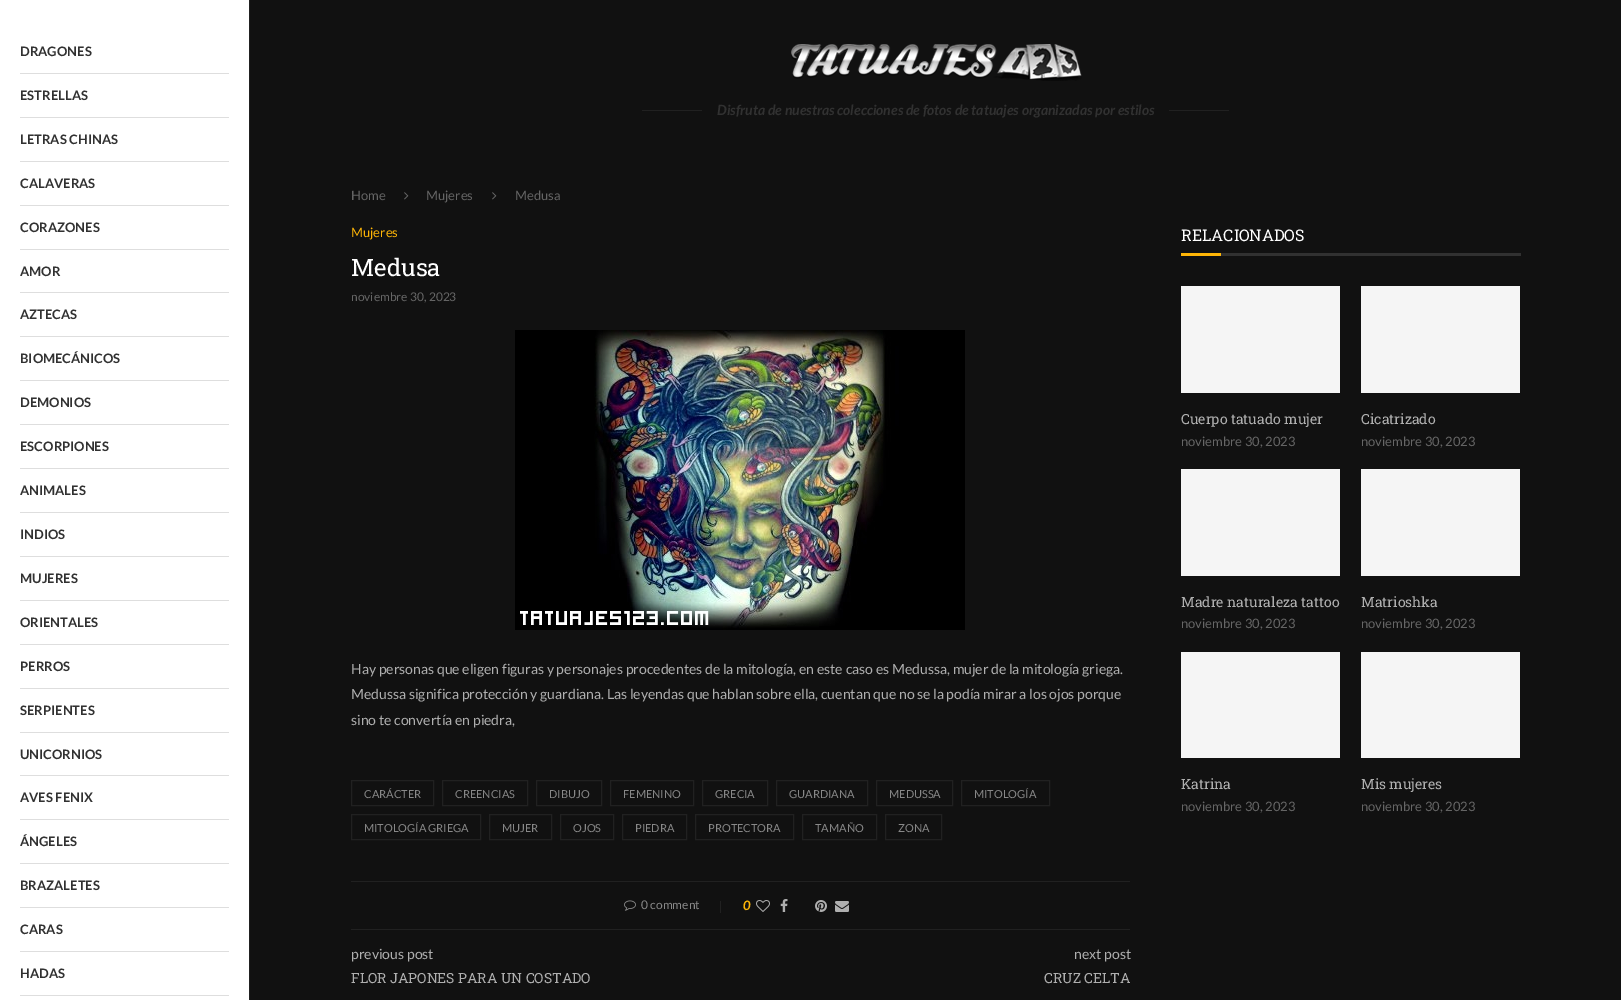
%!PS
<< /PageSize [1621 1000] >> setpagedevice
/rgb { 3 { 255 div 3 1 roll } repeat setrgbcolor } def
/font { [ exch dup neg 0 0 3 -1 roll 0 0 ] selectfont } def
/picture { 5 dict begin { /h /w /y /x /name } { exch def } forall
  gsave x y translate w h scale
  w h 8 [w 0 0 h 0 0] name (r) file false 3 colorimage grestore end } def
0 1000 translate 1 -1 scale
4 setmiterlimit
17 17 17 rgb
0 0 1621 1000 rectfill
[
  [0 0 249 1000 255 255 255]
  [249 0 1 1000 33 33 33]
  [20 73 209 1 222 222 222]
  [20 117 209 1 222 222 222]
  [20 161 209 1 222 222 222]
  [20 205 209 1 222 222 222]
  [20 249 209 1 222 222 222]
  [20 292 209 1 222 222 222]
  [20 336 209 1 222 222 222]
  [20 380 209 1 222 222 222]
  [20 424 209 1 222 222 222]
  [20 468 209 1 222 222 222]
  [20 512 209 1 222 222 222]
  [20 556 209 1 222 222 222]
  [20 600 209 1 222 222 222]
  [20 644 209 1 222 222 222]
  [20 688 209 1 222 222 222]
  [20 732 209 1 222 222 222]
  [20 775 209 1 222 222 222]
  [20 819 209 1 222 222 222]
  [20 863 209 1 222 222 222]
  [20 907 209 1 222 222 222]
  [20 951 209 1 222 222 222]
  [20 995 209 1 222 222 222]
] { aload pop rgb rectfill } forall
(img/1.rgb) 791 44 291 37 picture
33 33 33 rgb
642 110 60 1 rectfill
1169 110 60 1 rectfill
(img/2.rgb) 404 192 5 8 picture
(img/2.rgb) 492 192 5 8 picture
(img/3.rgb) 515 330 450 300 picture
351.5 780.5 82 25 rectstroke
442.5 780.5 85 25 rectstroke
536.5 780.5 65 25 rectstroke
610.5 780.5 83 25 rectstroke
702.5 780.5 65 25 rectstroke
776.5 780.5 91 25 rectstroke
876.5 780.5 76 25 rectstroke
961.5 780.5 88 25 rectstroke
351.5 814.5 129 25 rectstroke
489.5 814.5 62 25 rectstroke
560.5 814.5 53 25 rectstroke
622.5 814.5 64 25 rectstroke
695.5 814.5 98 25 rectstroke
802.5 814.5 74 25 rectstroke
885.5 814.5 56 25 rectstroke
351 881 779 1 rectfill
(img/4.rgb) 624 900 12 11 picture
720 901 1 12 rectfill
(img/5.rgb) 756 900 14 12 picture
(img/6.rgb) 780 899 8 13 picture
(img/7.rgb) 815 900 12 12 picture
(img/8.rgb) 835 901 14 11 picture
[
  [351 929 779 1 33 33 33]
  [1221 253 300 3 49 49 49]
  [1181 253 40 3 255 182 7]
  [1181 286 159 107 245 245 245]
  [1361 286 159 107 245 245 245]
  [1181 469 159 107 245 245 245]
  [1361 469 159 107 245 245 245]
  [1181 652 159 106 245 245 245]
  [1361 652 159 106 245 245 245]
] { aload pop rgb rectfill } forall
/Lato-Bold 13 font
49 49 49 rgb
[
  [(DRAGONES) 20 56]
  [(ESTRELLAS) 20 100]
  [(LETRAS CHINAS) 20 144]
  [(CALAVERAS) 20 188]
  [(CORAZONES) 20 232]
  [(AMOR) 20 276]
  [(AZTECAS) 20 319]
  [(BIOMECÁNICOS) 20 363]
  [(DEMONIOS) 20 407]
  [(ESCORPIONES) 20 451]
  [(ANIMALES) 20 495]
  [(INDIOS) 20 539]
  [(MUJERES) 20 583]
  [(ORIENTALES) 20 627]
  [(PERROS) 20 671]
  [(SERPIENTES) 20 715]
  [(UNICORNIOS) 20 759]
  [(AVES FENIX) 20 802]
  [(ÁNGELES) 20 846]
  [(BRAZALETES) 20 890]
  [(CARAS) 20 934]
  [(HADAS) 20 978]
] { aload pop moveto show } forall
/Lato-BoldItalic 14 font
717 115 moveto (Disfruta de nuestras colecciones de fotos de tatuajes organizadas por estilos) show
/Lato-Regular 13 font
102 102 102 rgb
[
  [(Home) 351 200]
  [(Mujeres) 426 200]
  [(Medusa) 515 200]
] { aload pop moveto show } forall
255 182 7 rgb
351 237 moveto (Mujeres) show
/RobotoSlab-Regular 24 font
255 255 255 rgb
351 276 moveto (Medusa) show
/Lato-Regular 12 font
102 102 102 rgb
351 301 moveto (noviembre 30, 2023) show
/Lato-Regular 14 font
175 175 175 rgb
[
  [(Hay personas que eligen figuras y personajes procedentes de la mitología, en este caso es Medussa, mujer de la mitología griega.) 351 674]
  [(Medussa significa protección y guardiana. Las leyendas que hablan sobre ella, cuentan que no se la podía mirar a los ojos porque) 351 699]
  [(sino te convertía en piedra,) 351 725]
] { aload pop moveto show } forall
/Lato-Regular 11 font
136 136 136 rgb
[
  [(CARÁCTER) 364 798]
  [(CREENCIAS) 455 798]
  [(DIBUJO) 549 798]
  [(FEMENINO) 623 798]
  [(GRECIA) 715 798]
  [(GUARDIANA) 789 798]
  [(MEDUSSA) 889 798]
  [(MITOLOGÍA) 974 798]
  [(MITOLOGÍA GRIEGA) 364 832]
  [(MUJER) 502 832]
  [(OJOS) 573 832]
  [(PIEDRA) 635 832]
  [(PROTECTORA) 708 832]
  [(TAMAÑO) 815 832]
  [(ZONA) 898 832]
] { aload pop moveto show } forall
/Lato-Regular 12 font
641 909 moveto (0 comment) show
/Lato-BoldItalic 13 font
255 182 7 rgb
743 910 moveto (0) show
/Lato-Regular 14 font
175 175 175 rgb
351 959 moveto (previous post) show
/RobotoSlab-Regular 14 font
351 983 moveto (FLOR JAPONES PARA UN COSTADO) show
/Lato-Regular 14 font
1074 959 moveto (next post) show
/RobotoSlab-Regular 14 font
1044 983 moveto (CRUZ CELTA) show
/RobotoSlab-Regular 16 font
255 255 255 rgb
1181 241 moveto (RELACIONADOS) show
/RobotoSlab-Regular 14 font
175 175 175 rgb
1181 424 moveto (Cuerpo tatuado mujer) show
/Lato-Regular 13 font
102 102 102 rgb
1181 446 moveto (noviembre 30, 2023) show
/RobotoSlab-Regular 14 font
175 175 175 rgb
1361 424 moveto (Cicatrizado) show
/Lato-Regular 13 font
102 102 102 rgb
1361 446 moveto (noviembre 30, 2023) show
/RobotoSlab-Regular 14 font
175 175 175 rgb
1181 607 moveto (Madre naturaleza tattoo) show
/Lato-Regular 13 font
102 102 102 rgb
1181 628 moveto (noviembre 30, 2023) show
/RobotoSlab-Regular 14 font
175 175 175 rgb
1361 607 moveto (Matrioshka) show
/Lato-Regular 13 font
102 102 102 rgb
1361 628 moveto (noviembre 30, 2023) show
/RobotoSlab-Regular 14 font
175 175 175 rgb
1181 789 moveto (Katrina) show
/Lato-Regular 13 font
102 102 102 rgb
1181 811 moveto (noviembre 30, 2023) show
/RobotoSlab-Regular 14 font
175 175 175 rgb
1361 789 moveto (Mis mujeres) show
/Lato-Regular 13 font
102 102 102 rgb
1361 811 moveto (noviembre 30, 2023) show
showpage
